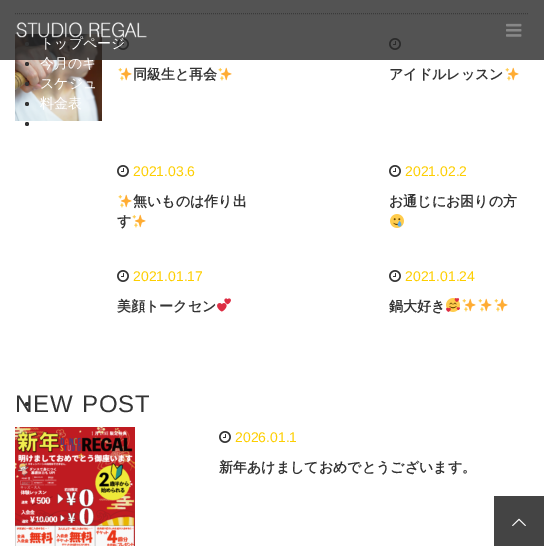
%!PS
<< /PageSize [544 546] /PageUsesTransparency true >> setpagedevice
/rgb { 3 { 255 div 3 1 roll } repeat setrgbcolor } def
/font { [ exch dup neg 0 0 3 -1 roll 0 0 ] selectfont } def
/alpha { dup .setfillconstantalpha .setstrokeconstantalpha } def
/circle { newpath 0 360 arc closepath } def
/picture { 5 dict begin { /h /w /y /x /name } { exch def } forall
  gsave x y translate w h scale
  w h 8 [w 0 0 h 0 0] name (r) file false 3 colorimage grestore end } def
0 .pushpdf14devicefilter
0 546 translate 1 -1 scale
4 setmiterlimit
255 255 255 rgb
0 0 544 546 rectfill
128 128 128 rgb
[1 1] 0 setdash
15 13.5 moveto 529 13.5 lineto stroke
(img/3.rgb) 15 34 87 87 picture
(img/4.rgb) 117 38 12 12 picture
(img/4.rgb) 389 38 12 12 picture
0.8 alpha
40 40 40 rgb
0 0 544 60 rectfill
1 alpha
(img/2.rgb) 506 23 16 14 picture
51 51 51 rgb
27 44 2 circle fill
27 64 2 circle fill
27 84 2 circle fill
27 104 2 circle fill
27 124 2 circle fill
27 404 2 circle fill
(img/5.rgb) 118 67 14 14 picture
(img/5.rgb) 218 67 14 14 picture
(img/5.rgb) 505 67 14 14 picture
(img/4.rgb) 117 165 12 12 picture
(img/5.rgb) 118 194 14 14 picture
(img/5.rgb) 132 214 14 14 picture
(img/4.rgb) 389 165 12 12 picture
(img/6.rgb) 390 214 14 14 picture
(img/4.rgb) 117 270 12 12 picture
(img/7.rgb) 217 298 14 14 picture
(img/4.rgb) 389 270 12 12 picture
(img/8.rgb) 446 298 14 14 picture
(img/5.rgb) 462 298 14 14 picture
(img/5.rgb) 478 298 14 14 picture
(img/5.rgb) 494 298 14 14 picture
(img/9.rgb) 15 427 120 119 picture
(img/4.rgb) 219 431 12 12 picture
68 68 68 rgb
494 496 50 50 rectfill
(img/10.rgb) 512 518 14 8 picture
/WenQuanYiZenHei-Medium 14 font
255 255 255 rgb
40 48 moveto (トップページ) show
(img/1.rgb) 16 22 131 16 picture
[
  [(今月のキ) 40 68]
  [(スケジュ) 40 88]
  [(料金表) 40 108]
] { aload pop moveto show } forall
/WenQuanYiZenHei-Bold 14 font
51 51 51 rgb
133 79 moveto (同級生と再会) show
389 79 moveto (アイドルレッスン) show
/LiberationSans-Regular 14 font
253 206 0 rgb
133 176 moveto (2021.03.6) show
/WenQuanYiZenHei-Bold 14 font
51 51 51 rgb
133 206 moveto (無いものは作り出) show
117 226 moveto (す) show
/LiberationSans-Regular 14 font
253 206 0 rgb
405 176 moveto (2021.02.2) show
/WenQuanYiZenHei-Bold 14 font
51 51 51 rgb
389 206 moveto (お通じにお困りの方) show
/LiberationSans-Regular 14 font
253 206 0 rgb
133 281 moveto (2021.01.17) show
/WenQuanYiZenHei-Bold 14 font
51 51 51 rgb
117 311 moveto (美顔トークセン) show
/LiberationSans-Regular 14 font
253 206 0 rgb
405 281 moveto (2021.01.24) show
/WenQuanYiZenHei-Bold 14 font
51 51 51 rgb
389 311 moveto (鍋大好き) show
/LiberationSans-Regular 24 font
15 412 moveto 1 0 (NEW POST) ashow
/LiberationSans-Regular 14 font
253 206 0 rgb
235 442 moveto (2026.01.1) show
/WenQuanYiZenHei-Bold 14 font
51 51 51 rgb
219 472 moveto (新年あけましておめでとうございます。) show
.poppdf14devicefilter showpage
